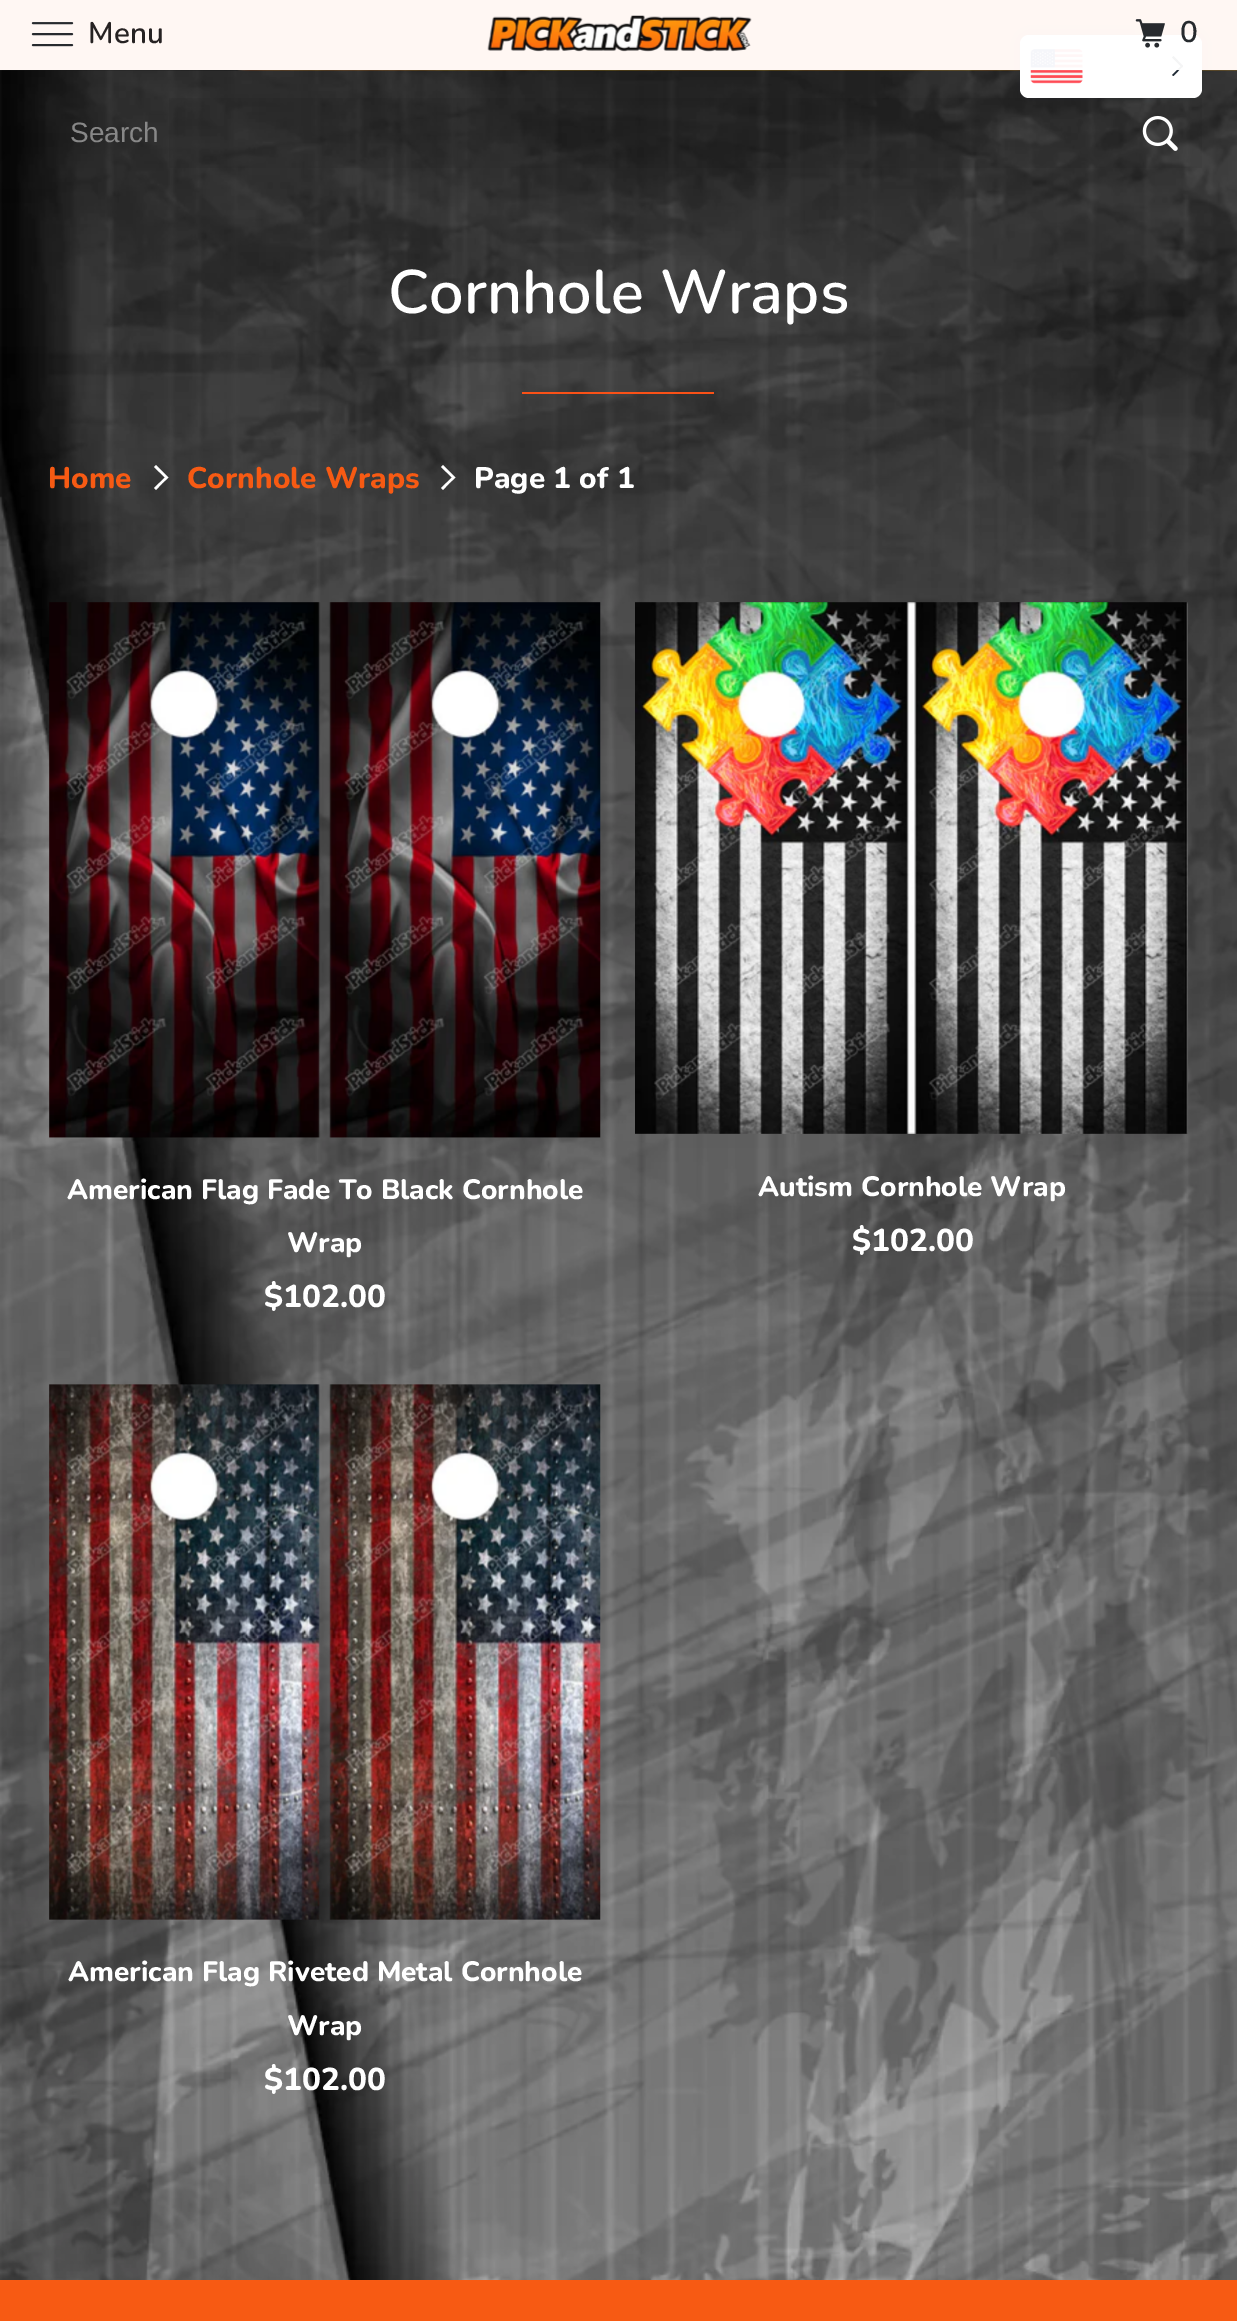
%!PS
<< /PageSize [1237 2321] /PageUsesTransparency true >> setpagedevice
/rgb { 3 { 255 div 3 1 roll } repeat setrgbcolor } def
/font { [ exch dup neg 0 0 3 -1 roll 0 0 ] selectfont } def
/alpha { dup .setfillconstantalpha .setstrokeconstantalpha } def
/roundrect { 5 dict begin { /r /h /w /y /x } { exch def } forall
  x r add y moveto x w add y 2 copy h add r arct x w add y h add x 1 index r arct
  x y h add x y r arct x y 2 copy exch w add exch r arct closepath end } def
/shadow { 12 dict begin { /a /b /q /h /w /y /x } { exch def } forall gsave /was 0 def
  9 -2 -9 { dup b mul 4 div /e exch def 1 sub .425 mul 2.718 exch exp 1 add a .99 .min exch div /now exch def
    1 1 now sub 1 was sub div sub alpha /was now def
    w h .min e 2 mul add 0 gt { x e sub y e sub w e 2 mul add h e 2 mul add
      q e add b .6 mul add w h .min 2 div e add .min 0 .max roundrect fill } if } for grestore end } def
/picture { 5 dict begin { /h /w /y /x /name } { exch def } forall
  gsave x y translate w h scale
  w h 8 [w 0 0 h 0 0] name (r) file false 3 colorimage grestore end } def
0 .pushpdf14devicefilter
0 2321 translate 1 -1 scale
4 setmiterlimit
247 90 19 rgb
0 0 1237 2321 rectfill
(img/5.rgb) 0 70 1237 2210 picture
0.05 alpha
0 0 0 rgb
169 98 1033 70 rectfill
1 alpha
33 43 54 rgb
1020 35 182 63 9 4.5 0.25 shadow
255 255 255 rgb
1020 35 182 63 9 roundrect fill
(img/4.rgb) 1030 49 53 35 picture
33 43 54 rgb
1172 57.5 moveto 1173.5 56 lineto 1183 66 lineto 1182 67.5 lineto closepath fill
1172 75 moveto 1182 65 lineto 1183 66 lineto 1173.5 76 lineto closepath fill
0.95 alpha
255 255 255 rgb
0 0 1237 70 rectfill
1 alpha
(img/1.rgb) 31 22 43 25 picture
(img/2.rgb) 487 15 265 37 picture
(img/3.rgb) 1135 19 30 29 picture
(img/6.rgb) 1142 115 36 36 picture
250 81 23 rgb
522 392 192 2 rectfill
255 255 255 rgb
162 483.5 moveto 156 490 lineto 154 488 lineto 165 477.5 lineto 154 467 lineto 156 465 lineto 168.5 477.5 lineto closepath fill
449 483.5 moveto 443 490 lineto 441 488 lineto 452 477.5 lineto 441 467 lineto 443 465 lineto 455.5 477.5 lineto closepath fill
(img/7.rgb) 49 602 552 536 picture
(img/8.rgb) 635 602 553 532 picture
(img/9.rgb) 49 1384 552 536 picture
/Nunito-SemiBold 29.75 font
38 34 34 rgb
88 43 moveto (Menu) show
38 42 46 rgb
1180 42 moveto (0) show
/LiberationSans-Regular 28 font
136 136 136 rgb
70 142 moveto (Search) show
/Nunito-SemiBold 61.25 font
255 255 255 rgb
388 313 moveto (Cornhole Wraps) show
/Nunito-ExtraBold 29.75 font
247 90 19 rgb
48 488 moveto (Home) show
187 488 moveto (Cornhole Wraps) show
255 255 255 rgb
474 488 moveto (Page 1 of 1) show
/Nunito-ExtraBold 28 font
67 1199 moveto (American Flag Fade To Black Cornhole) show
287 1252 moveto (Wrap) show
/Nunito-ExtraBold 31.5 font
264 1307 moveto ($102.00) show
/Nunito-ExtraBold 28 font
758 1196 moveto (Autism Cornhole Wrap) show
/Nunito-ExtraBold 31.5 font
852 1251 moveto ($102.00) show
/Nunito-ExtraBold 28 font
68 1981 moveto (American Flag Riveted Metal Cornhole) show
287 2035 moveto (Wrap) show
/Nunito-ExtraBold 31.5 font
264 2090 moveto ($102.00) show
.poppdf14devicefilter showpage
